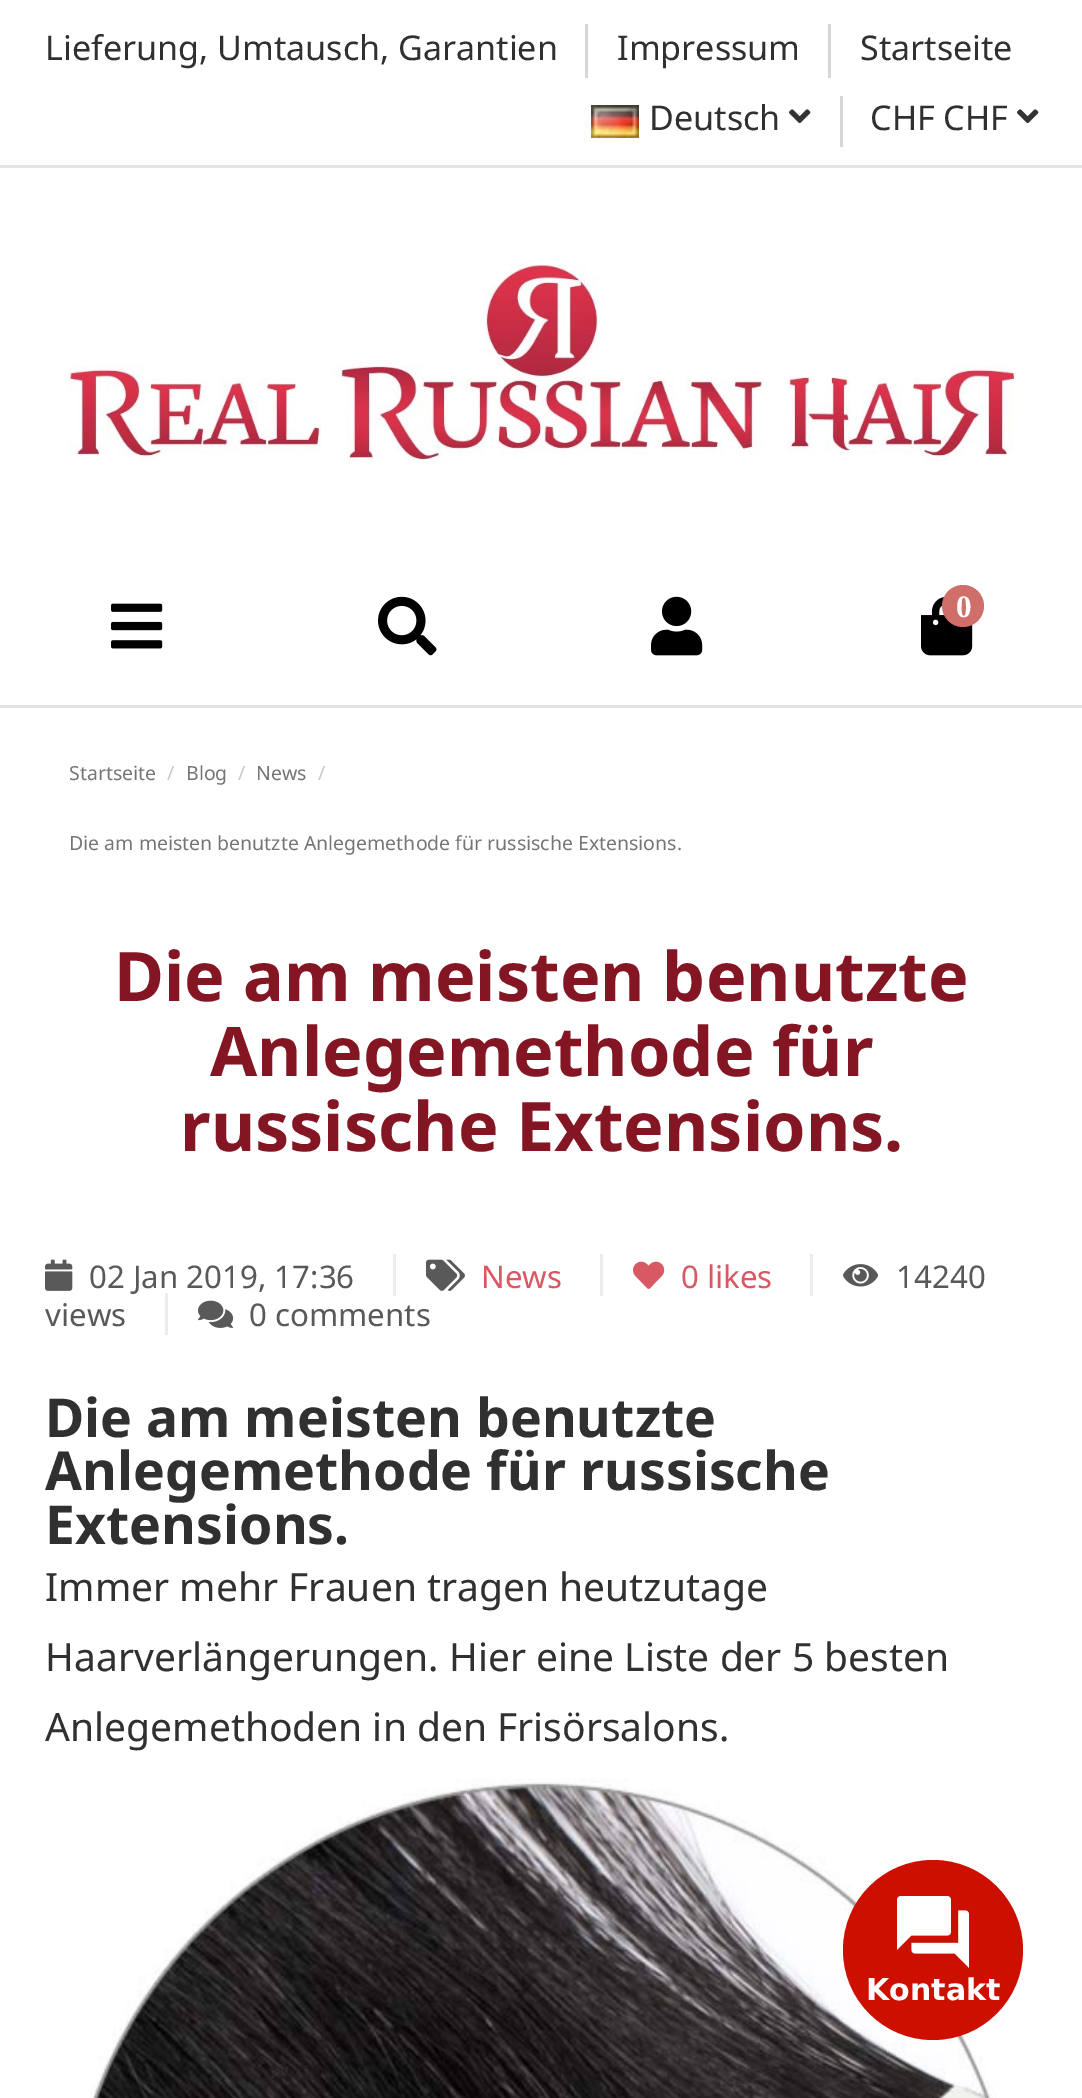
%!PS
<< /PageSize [1082 2098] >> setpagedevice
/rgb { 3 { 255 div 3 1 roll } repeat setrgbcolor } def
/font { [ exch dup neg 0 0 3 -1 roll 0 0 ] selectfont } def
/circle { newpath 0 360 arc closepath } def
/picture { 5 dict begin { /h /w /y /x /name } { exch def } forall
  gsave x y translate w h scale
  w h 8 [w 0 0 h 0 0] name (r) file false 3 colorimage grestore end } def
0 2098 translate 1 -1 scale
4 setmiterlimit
255 255 255 rgb
0 0 1082 2098 rectfill
[
  [0 165 1082 3 227 227 227]
  [585 24 3 54 214 214 214]
  [828 24 3 54 214 214 214]
] { aload pop rgb rectfill } forall
(img/1.rgb) 591 105 48 33 picture
(img/2.rgb) 789 109 22 15 picture
840 96 3 51 rectfill
(img/2.rgb) 1017 109 22 15 picture
227 227 227 rgb
0 705 1082 3 rectfill
(img/3.rgb) 69 264 945 198 picture
(img/4.rgb) 111 603 52 46 picture
(img/5.rgb) 378 596 59 60 picture
(img/6.rgb) 651 596 52 60 picture
(img/7.rgb) 921 596 52 60 picture
208 110 106 rgb
963 606 21 circle fill
236 236 236 rgb
810 1254 3 42 rectfill
(img/8.rgb) 633 1261 32 28 picture
(img/9.rgb) 843 1264 36 23 picture
393 1254 3 42 rectfill
(img/10.rgb) 45 1259 28 32 picture
600 1254 3 42 rectfill
(img/11.rgb) 426 1259 39 32 picture
(img/12.rgb) 198 1300 36 28 picture
(img/13.rgb) 90 1778 907 320 picture
205 15 0 rgb
933 1950 90 circle fill
(img/14.rgb) 897 1896 72 72 picture
/NotoSans-Regular 34.1 font
48 48 48 rgb
[
  [(Lieferung, Umtausch, Garantien) 45 60]
  [(Impressum) 617 60]
  [(Startseite) 860 60]
  [(Deutsch) 649 130]
  [(CHF CHF) 870 130]
] { aload pop moveto show } forall
/LiberationSerif-Bold 31.25 font
255 255 255 rgb
956 617 moveto (0) show
/NotoSans-Regular 19.5 font
117 117 117 rgb
69 780 moveto (Startseite) show
200 200 200 rgb
167 780 moveto (/) show
117 117 117 rgb
186 780 moveto (Blog) show
200 200 200 rgb
238 780 moveto (/) show
117 117 117 rgb
256 780 moveto (News) show
200 200 200 rgb
318 780 moveto (/) show
117 117 117 rgb
69 850 moveto (Die am meisten benutzte Anlegemethode für russische Extensions.) show
/NotoSans-Bold 68.25 font
132 21 35 rgb
[
  [(Die am meisten benutzte) 114 1001]
  [(Anlegemethode für) 210 1076]
  [(russische Extensions.) 180 1151]
] { aload pop moveto show } forall
/NotoSans-Regular 31.25 font
216 89 99 rgb
681 1288 moveto (0 likes) show
89 89 89 rgb
[
  [(14240) 896 1288]
  [(views) 45 1326]
  [(02 Jan 2019, 17:36) 89 1288]
] { aload pop moveto show } forall
236 236 236 rgb
165 1293 3 42 rectfill
216 89 99 rgb
481 1288 moveto (News) show
89 89 89 rgb
249 1326 moveto (0 comments) show
/NotoSans-Bold 53.6 font
48 48 48 rgb
[
  [(Die am meisten benutzte) 45 1437]
  [(Anlegemethode für russische) 45 1490]
  [(Extensions.) 45 1544]
] { aload pop moveto show } forall
/NotoSans-Regular 39 font
[
  [(Immer mehr Frauen tragen heutzutage) 45 1601]
  [(Haarverlängerungen. Hier eine Liste der 5 besten) 45 1671]
  [(Anlegemethoden in den Frisörsalons.) 45 1741]
] { aload pop moveto show } forall
/DejaVuSans-Bold 30 font
255 255 255 rgb
866 2000 moveto (Kontakt) show
showpage
